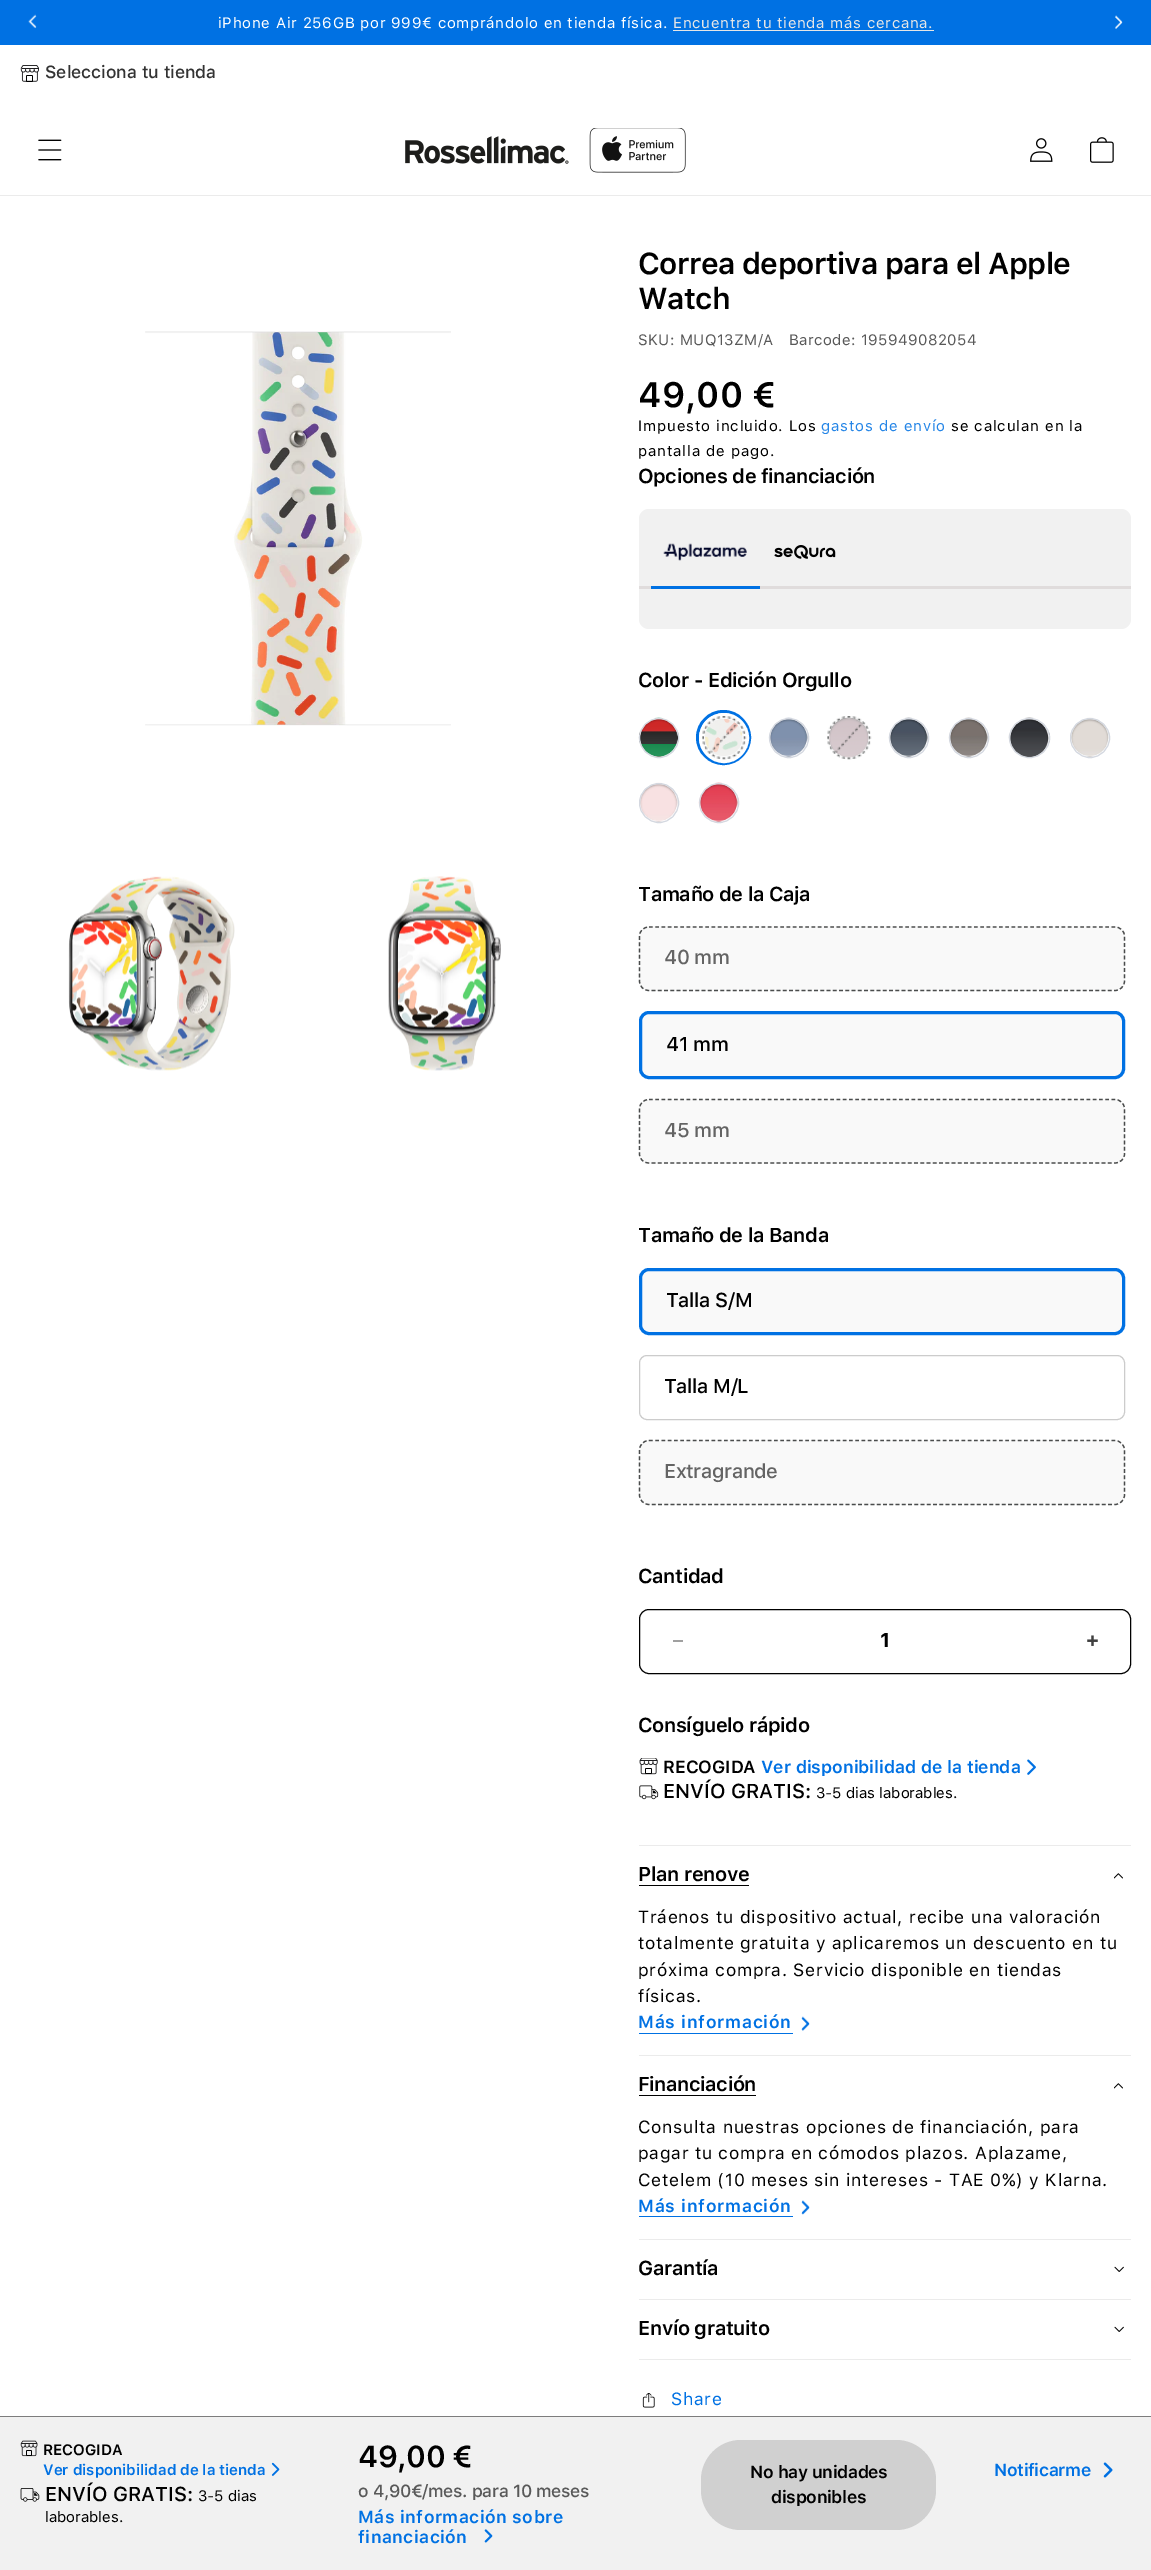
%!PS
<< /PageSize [1151 2570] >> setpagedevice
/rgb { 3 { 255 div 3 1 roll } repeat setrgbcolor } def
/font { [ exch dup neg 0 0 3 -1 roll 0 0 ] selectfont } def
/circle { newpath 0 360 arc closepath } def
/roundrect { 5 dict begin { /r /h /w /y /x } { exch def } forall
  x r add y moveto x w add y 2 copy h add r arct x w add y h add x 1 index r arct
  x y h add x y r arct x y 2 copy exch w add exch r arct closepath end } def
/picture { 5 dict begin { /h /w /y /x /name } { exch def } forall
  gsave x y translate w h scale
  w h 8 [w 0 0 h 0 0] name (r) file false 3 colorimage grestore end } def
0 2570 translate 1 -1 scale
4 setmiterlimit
255 255 255 rgb
0 0 1151 2570 rectfill
0 113 227 rgb
0 0 1151 45 rectfill
(img/1.rgb) 28 14 9 15 picture
230 230 230 rgb
673 30 261 1 rectfill
(img/2.rgb) 1115 15 8 14 picture
235 235 235 rgb
0 195 1151 1 rectfill
(img/3.rgb) 20 65 19 17 picture
(img/4.rgb) 38 139 24 22 picture
(img/5.rgb) 405 136 164 28 picture
(img/6.rgb) 589 128 97 45 picture
(img/7.rgb) 1030 138 23 24 picture
(img/8.rgb) 1090 137 24 26 picture
(img/9.rgb) 145 331 306 395 picture
(img/10.rgb) 68 876 167 195 picture
(img/11.rgb) 388 876 113 195 picture
241 241 241 rgb
639 509 492 120 10 roundrect fill
224 220 220 rgb
639 586 492 3 rectfill
(img/12.rgb) 663 543 84 18 picture
0 113 227 rgb
651 586 109 3 rectfill
(img/13.rgb) 774 545 62 14 picture
(img/14.rgb) 638 717 41 41 picture
212 216 224 rgb
659 738 19.5 circle stroke
0 113 227 rgb
3 setlinewidth
723.5 737.5 26 circle stroke
(img/15.rgb) 705 718 38 38 picture
255 255 255 rgb
724 738 23.5 circle stroke
(img/16.rgb) 702 716 45 44 picture
(img/17.rgb) 768 717 41 41 picture
212 216 224 rgb
1 setlinewidth
789 738 19.5 circle stroke
(img/18.rgb) 828 717 41 41 picture
(img/19.rgb) 827 716 45 44 picture
(img/20.rgb) 888 717 41 41 picture
909 738 19.5 circle stroke
(img/21.rgb) 948 717 41 41 picture
969 738 19.5 circle stroke
(img/22.rgb) 1008 717 42 41 picture
1009.5 718.5 40 39 19.5 roundrect stroke
(img/23.rgb) 1070 717 40 41 picture
1090 738 19.5 circle stroke
(img/24.rgb) 639 782 40 41 picture
659 803 19.5 circle stroke
(img/25.rgb) 698 782 41 41 picture
719 803 19.5 circle stroke
249 249 249 rgb
639 926 486 65 10 roundrect fill
74 76 76 rgb
1.2 setlinewidth
[3.75 2.5] 0 setdash
649 927 moveto 1115 927 lineto 1120 927 1124.5 931 1124.5 936 curveto 1124.5 981 lineto 1124.5 986.5 1120 990.5 1115 990.5 curveto 649 990.5 lineto 643.5 990.5 639.5 986.5 639.5 981 curveto 639.5 936 lineto 639.5 931 643.5 927 649 927 curveto closepath stroke
249 249 249 rgb
640.5 1012.5 483 65 8.5 roundrect gsave fill grestore
0 113 227 rgb
3 setlinewidth
[] 0 setdash
stroke
249 249 249 rgb
639 1099 486 65 10 roundrect fill
74 76 76 rgb
1.2 setlinewidth
[3.75 2.5] 0 setdash
649 1099.5 moveto 1115 1099.5 lineto 1120 1099.5 1124.5 1103.5 1124.5 1109 curveto 1124.5 1154 lineto 1124.5 1159 1120 1163 1115 1163 curveto 649 1163 lineto 643.5 1163 639.5 1159 639.5 1154 curveto 639.5 1109 lineto 639.5 1103.5 643.5 1099.5 649 1099.5 curveto closepath stroke
249 249 249 rgb
640.5 1269.5 483 64 8.5 roundrect gsave fill grestore
0 113 227 rgb
3 setlinewidth
[] 0 setdash
stroke
204 204 204 rgb
1 setlinewidth
639.5 1355.5 485 64 7.5 roundrect stroke
249 249 249 rgb
639 1440 486 65 10 roundrect fill
74 76 76 rgb
1.2 setlinewidth
[3.75 2.5] 0 setdash
649 1440.5 moveto 1115 1440.5 lineto 1120 1440.5 1124.5 1445 1124.5 1450 curveto 1124.5 1495 lineto 1124.5 1500 1120 1504.5 1115 1504.5 curveto 649 1504.5 lineto 643.5 1504.5 639.5 1500 639.5 1495 curveto 639.5 1450 lineto 639.5 1445 643.5 1440.5 649 1440.5 curveto closepath stroke
0 0 0 rgb
1 setlinewidth
[] 0 setdash
639.5 1609.5 491 64 9.5 roundrect stroke
160 160 160 rgb
673 1640 10 2 rectfill
(img/26.rgb) 1087 1635 11 11 picture
(img/27.rgb) 639 1758 19 17 picture
(img/28.rgb) 1027 1759 9 16 picture
(img/29.rgb) 639 1785 20 15 picture
[
  [639 1845 492 1 235 235 235]
  [639 2055 492 1 235 235 235]
  [639 1885 110 1 0 0 0]
] { aload pop rgb rectfill } forall
(img/30.rgb) 1114 1873 9 6 picture
0 113 227 rgb
639 2033 154 1 rectfill
(img/31.rgb) 801 2016 9 15 picture
235 235 235 rgb
639 2239 492 1 rectfill
0 0 0 rgb
639 2095 117 1 rectfill
(img/30.rgb) 1114 2083 9 6 picture
0 113 227 rgb
639 2216 154 1 rectfill
(img/32.rgb) 801 2200 9 15 picture
235 235 235 rgb
639 2299 492 1 rectfill
(img/33.rgb) 1114 2266 10 6 picture
639 2359 492 1 rectfill
(img/33.rgb) 1114 2326 10 6 picture
(img/34.rgb) 642 2393 13 15 picture
241 241 241 rgb
0 2416 1151 154 rectfill
125 125 125 rgb
0 2416 1151 1 0.5 roundrect fill
(img/35.rgb) 20 2440 18 17 picture
(img/36.rgb) 271 2462 9 14 picture
(img/37.rgb) 20 2488 20 14 picture
(img/38.rgb) 484 2529 9 14 picture
208 208 208 rgb
701 2440 235 90 40 roundrect fill
(img/39.rgb) 1103 2462 10 16 picture
/SFProText-Regular 15 font
255 255 255 rgb
218 28 moveto 0.75 0 (iPhone Air 256GB por 999€ comprándolo en tienda física.) ashow
230 230 230 rgb
673 28 moveto 0.75 0 (Encuentra tu tienda más cercana.) ashow
/SFProText-Medium 17.5 font
51 51 51 rgb
45 78 moveto (Selecciona tu tienda) show
/SFProText-SemiBold 30 font
0 0 0 rgb
638 274 moveto -0.6 0 (Correa deportiva para el Apple) ashow
638 309 moveto -0.6 0 (Watch) ashow
/SFProText-Regular 15 font
89 89 89 rgb
638 345 moveto 0.45 0 (SKU: MUQ13ZM/A) ashow
789 345 moveto 0.45 0 (Barcode: 195949082054) ashow
/SFProText-SemiBold 35 font
0 0 0 rgb
638 407 moveto (49,00 €) show
/SFProText-Regular 15 font
638 431 moveto 0.9 0 (Impuesto incluido. Los) ashow
38 134 231 rgb
821 431 moveto 0.9 0 (gastos de envío) ashow
0 0 0 rgb
951 431 moveto 0.9 0 (se calculan en la) ashow
638 456 moveto 0.9 0 (pantalla de pago.) ashow
/SFProText-SemiBold 20 font
638 483 moveto -0.4 0 (Opciones de financiación) ashow
638 687 moveto -0.4 0 (Color - Edición Orgullo) ashow
638 901 moveto -0.4 0 (Tamaño de la Caja) ashow
/SFProText-Medium 20 font
100 100 100 rgb
664 964 moveto -0.4 0 (40 mm) ashow
0 0 0 rgb
666 1051 moveto -0.4 0 (41 mm) ashow
100 100 100 rgb
664 1137 moveto -0.4 0 (45 mm) ashow
/SFProText-SemiBold 20 font
0 0 0 rgb
638 1242 moveto -0.4 0 (Tamaño de la Banda) ashow
/SFProText-Medium 20 font
666 1307 moveto -0.4 0 (Talla S/M) ashow
664 1393 moveto -0.4 0 (Talla M/L) ashow
100 100 100 rgb
664 1478 moveto -0.4 0 (Extragrande) ashow
/SFProText-SemiBold 20 font
0 0 0 rgb
638 1583 moveto -0.4 0 (Cantidad) ashow
/SFProText-Bold 20 font
880 1647 moveto -0.4 0 (1) ashow
/SFProText-SemiBold 20 font
638 1732 moveto -0.4 0 (Consíguelo rápido) ashow
/SFProText-SemiBold 17.5 font
663 1773 moveto (RECOGIDA) show
0 113 227 rgb
761 1773 moveto (Ver disponibilidad de la tienda) show
/SFProText-Medium 20 font
0 0 0 rgb
663 1798 moveto (ENVÍO GRATIS:) show
/SFProText-Regular 15 font
816 1798 moveto (3-5 dias laborables.) show
/SFProText-SemiBold 20 font
638 1881 moveto -0.4 0 (Plan renove) ashow
/SFProText-Regular 17.5 font
638 1923 moveto 0.75 0 (Tráenos tu dispositivo actual, recibe una valoración) ashow
638 1949 moveto 0.75 0 (totalmente gratuita y aplicaremos un descuento en tu) ashow
638 1976 moveto 0.75 0 (próxima compra. Servicio disponible en tiendas) ashow
638 2002 moveto 0.75 0 (físicas.) ashow
/SFProText-SemiBold 17.5 font
0 113 227 rgb
638 2028 moveto 0.75 0 (Más información) ashow
/SFProText-SemiBold 20 font
0 0 0 rgb
638 2091 moveto -0.4 0 (Financiación) ashow
/SFProText-Regular 17.5 font
638 2133 moveto 0.75 0 (Consulta nuestras opciones de financiación, para) ashow
638 2159 moveto 0.75 0 (pagar tu compra en cómodos plazos. Aplazame,) ashow
638 2186 moveto 0.75 0 (Cetelem \(10 meses sin intereses - TAE 0%\) y Klarna.) ashow
/SFProText-SemiBold 17.5 font
0 113 227 rgb
638 2212 moveto 0.75 0 (Más información) ashow
/SFProText-SemiBold 20 font
0 0 0 rgb
638 2275 moveto -0.4 0 (Garantía) ashow
638 2335 moveto -0.4 0 (Envío gratuito) ashow
/SFProText-Regular 17.5 font
0 113 227 rgb
671 2405 moveto 0.75 0 (Share) ashow
/SFProText-SemiBold 15 font
0 0 0 rgb
43 2455 moveto (RECOGIDA) show
0 113 227 rgb
43 2475 moveto (Ver disponibilidad de la tienda) show
/SFProText-Medium 20 font
0 0 0 rgb
45 2501 moveto (ENVÍO GRATIS:) show
/SFProText-Regular 15 font
198 2501 moveto (3-5 dias) show
45 2522 moveto (laborables.) show
/SFProText-SemiBold 30 font
358 2467 moveto -0.6 0 (49,00 €) ashow
/SFProText-Medium 17.5 font
89 89 89 rgb
358 2497 moveto -0.35 0 (o 4,90€/mes. para 10 meses) ashow
/SFProText-SemiBold 17.5 font
0 113 227 rgb
358 2523 moveto 0.45 0 (Más información sobre) ashow
358 2543 moveto 0.45 0 (financiación) ashow
0 0 0 rgb
750 2478 moveto -0.35 0 (No hay unidades) ashow
771 2503 moveto -0.35 0 (disponibles) ashow
0 113 227 rgb
994 2476 moveto -0.4 0 (Notificarme) ashow
showpage
